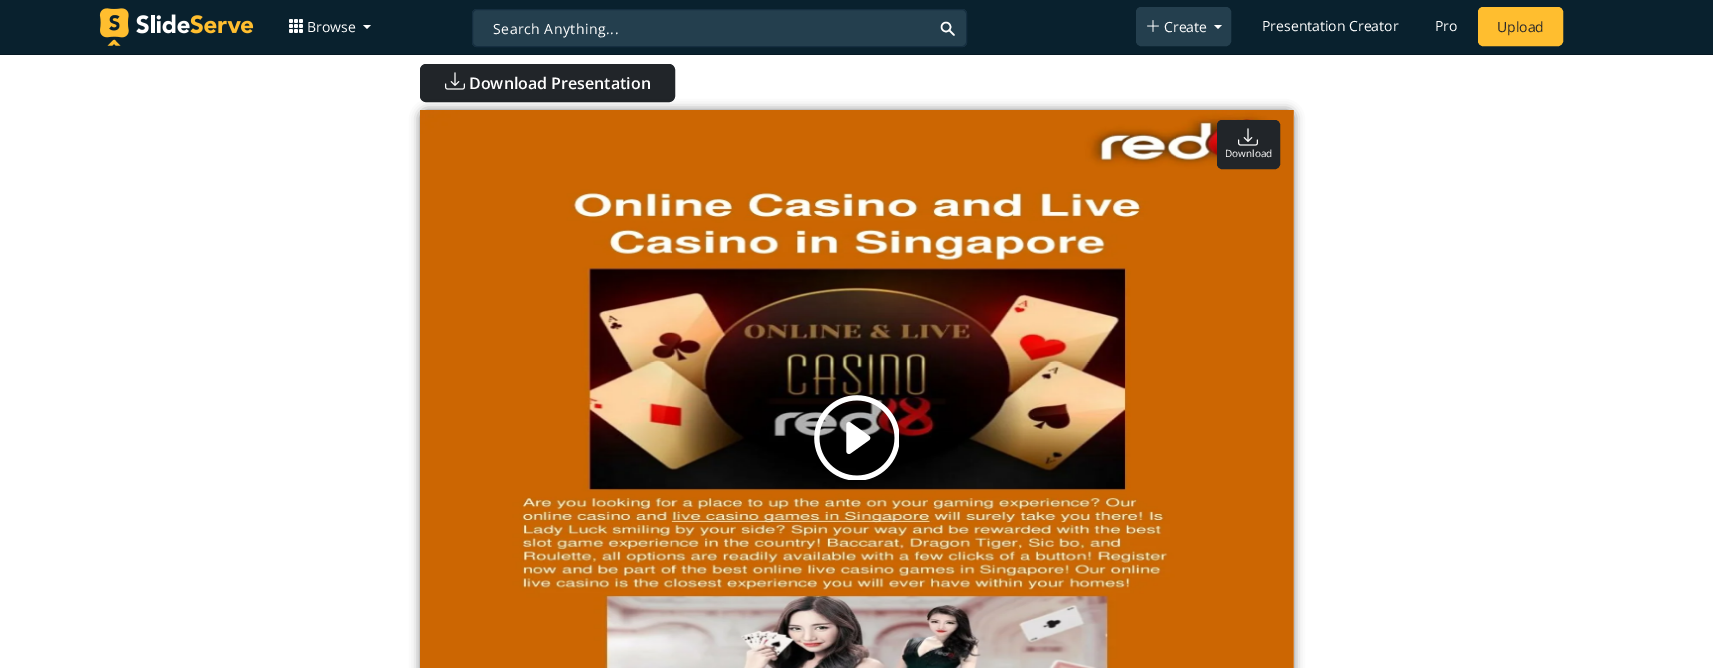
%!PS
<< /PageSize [1713 668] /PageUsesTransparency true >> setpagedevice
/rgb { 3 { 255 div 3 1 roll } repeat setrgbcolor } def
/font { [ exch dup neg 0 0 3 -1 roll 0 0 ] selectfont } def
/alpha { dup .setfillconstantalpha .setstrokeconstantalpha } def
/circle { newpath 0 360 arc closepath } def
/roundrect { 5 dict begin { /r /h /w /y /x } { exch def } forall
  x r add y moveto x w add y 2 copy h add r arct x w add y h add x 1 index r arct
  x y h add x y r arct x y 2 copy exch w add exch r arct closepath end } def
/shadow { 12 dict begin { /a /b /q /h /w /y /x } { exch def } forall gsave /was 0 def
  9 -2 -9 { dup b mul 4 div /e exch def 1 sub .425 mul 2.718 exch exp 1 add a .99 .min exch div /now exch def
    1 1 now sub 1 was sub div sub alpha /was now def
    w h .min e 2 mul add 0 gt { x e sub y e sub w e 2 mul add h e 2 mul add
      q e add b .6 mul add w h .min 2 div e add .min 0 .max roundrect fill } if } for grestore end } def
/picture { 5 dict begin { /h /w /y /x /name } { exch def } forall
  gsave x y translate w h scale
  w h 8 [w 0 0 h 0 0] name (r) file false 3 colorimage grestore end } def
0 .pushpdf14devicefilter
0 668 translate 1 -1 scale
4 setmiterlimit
255 255 255 rgb
0 0 1713 668 rectfill
9 33 46 rgb
0 0 1713 54 rectfill
6 25 36 rgb
0 54 1713 1 rectfill
(img/1.rgb) 99 8 155 38 picture
(img/2.rgb) 289 19 14 14 picture
255 255 255 rgb
363 25 moveto 371 25 lineto 367 29 lineto closepath fill
36 63 78 rgb
1136.5 7.5 94 38 4.5 roundrect gsave fill grestore
stroke
(img/3.rgb) 1147 20 12 12 picture
255 255 255 rgb
1214 25 moveto 1222 25 lineto 1218 29 lineto closepath fill
255 190 47 rgb
1478.5 7.5 84 38 4.5 roundrect gsave fill grestore
stroke
36 63 78 rgb
472 9 495 38 5 roundrect fill
255 255 255 rgb
1.5 setlinewidth
946 27 4.5 circle stroke
1 setlinecap
1 setlinejoin
954 35 moveto 949.5 30.5 lineto stroke
21 46 64 rgb
1 setlinewidth
0 setlinecap
0 setlinejoin
472.5 9.5 494 37 4.5 roundrect stroke
33 37 41 rgb
420.5 64.5 254 37 5.5 roundrect gsave fill grestore
stroke
(img/4.rgb) 445 72 20 18 picture
0 0 0 rgb
420 110 874 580 7 5 0.5 shadow
(img/5.rgb) 420 110 874 558 picture
33 37 41 rgb
1217.5 120.5 62 48 4.5 roundrect gsave fill grestore
stroke
(img/4.rgb) 1238 128 20 18 picture
(img/6.rgb) 814 395 85 85 picture
/OpenSans-Regular 14 font
255 255 255 rgb
[
  [(Browse) 307 32]
  [(Create) 1164 32]
  [(Presentation Creator) 1262 31]
  [(Pro) 1435 31]
] { aload pop moveto show } forall
43 42 42 rgb
1497 32 moveto (Upload) show
255 255 255 rgb
493 34 moveto 0.5 0 (Search Anything...) ashow
/OpenSans-SemiBold 16 font
469 89 moveto (Download Presentation) show
/OpenSans-Regular 10 font
1225 157 moveto (Download) show
.poppdf14devicefilter showpage
